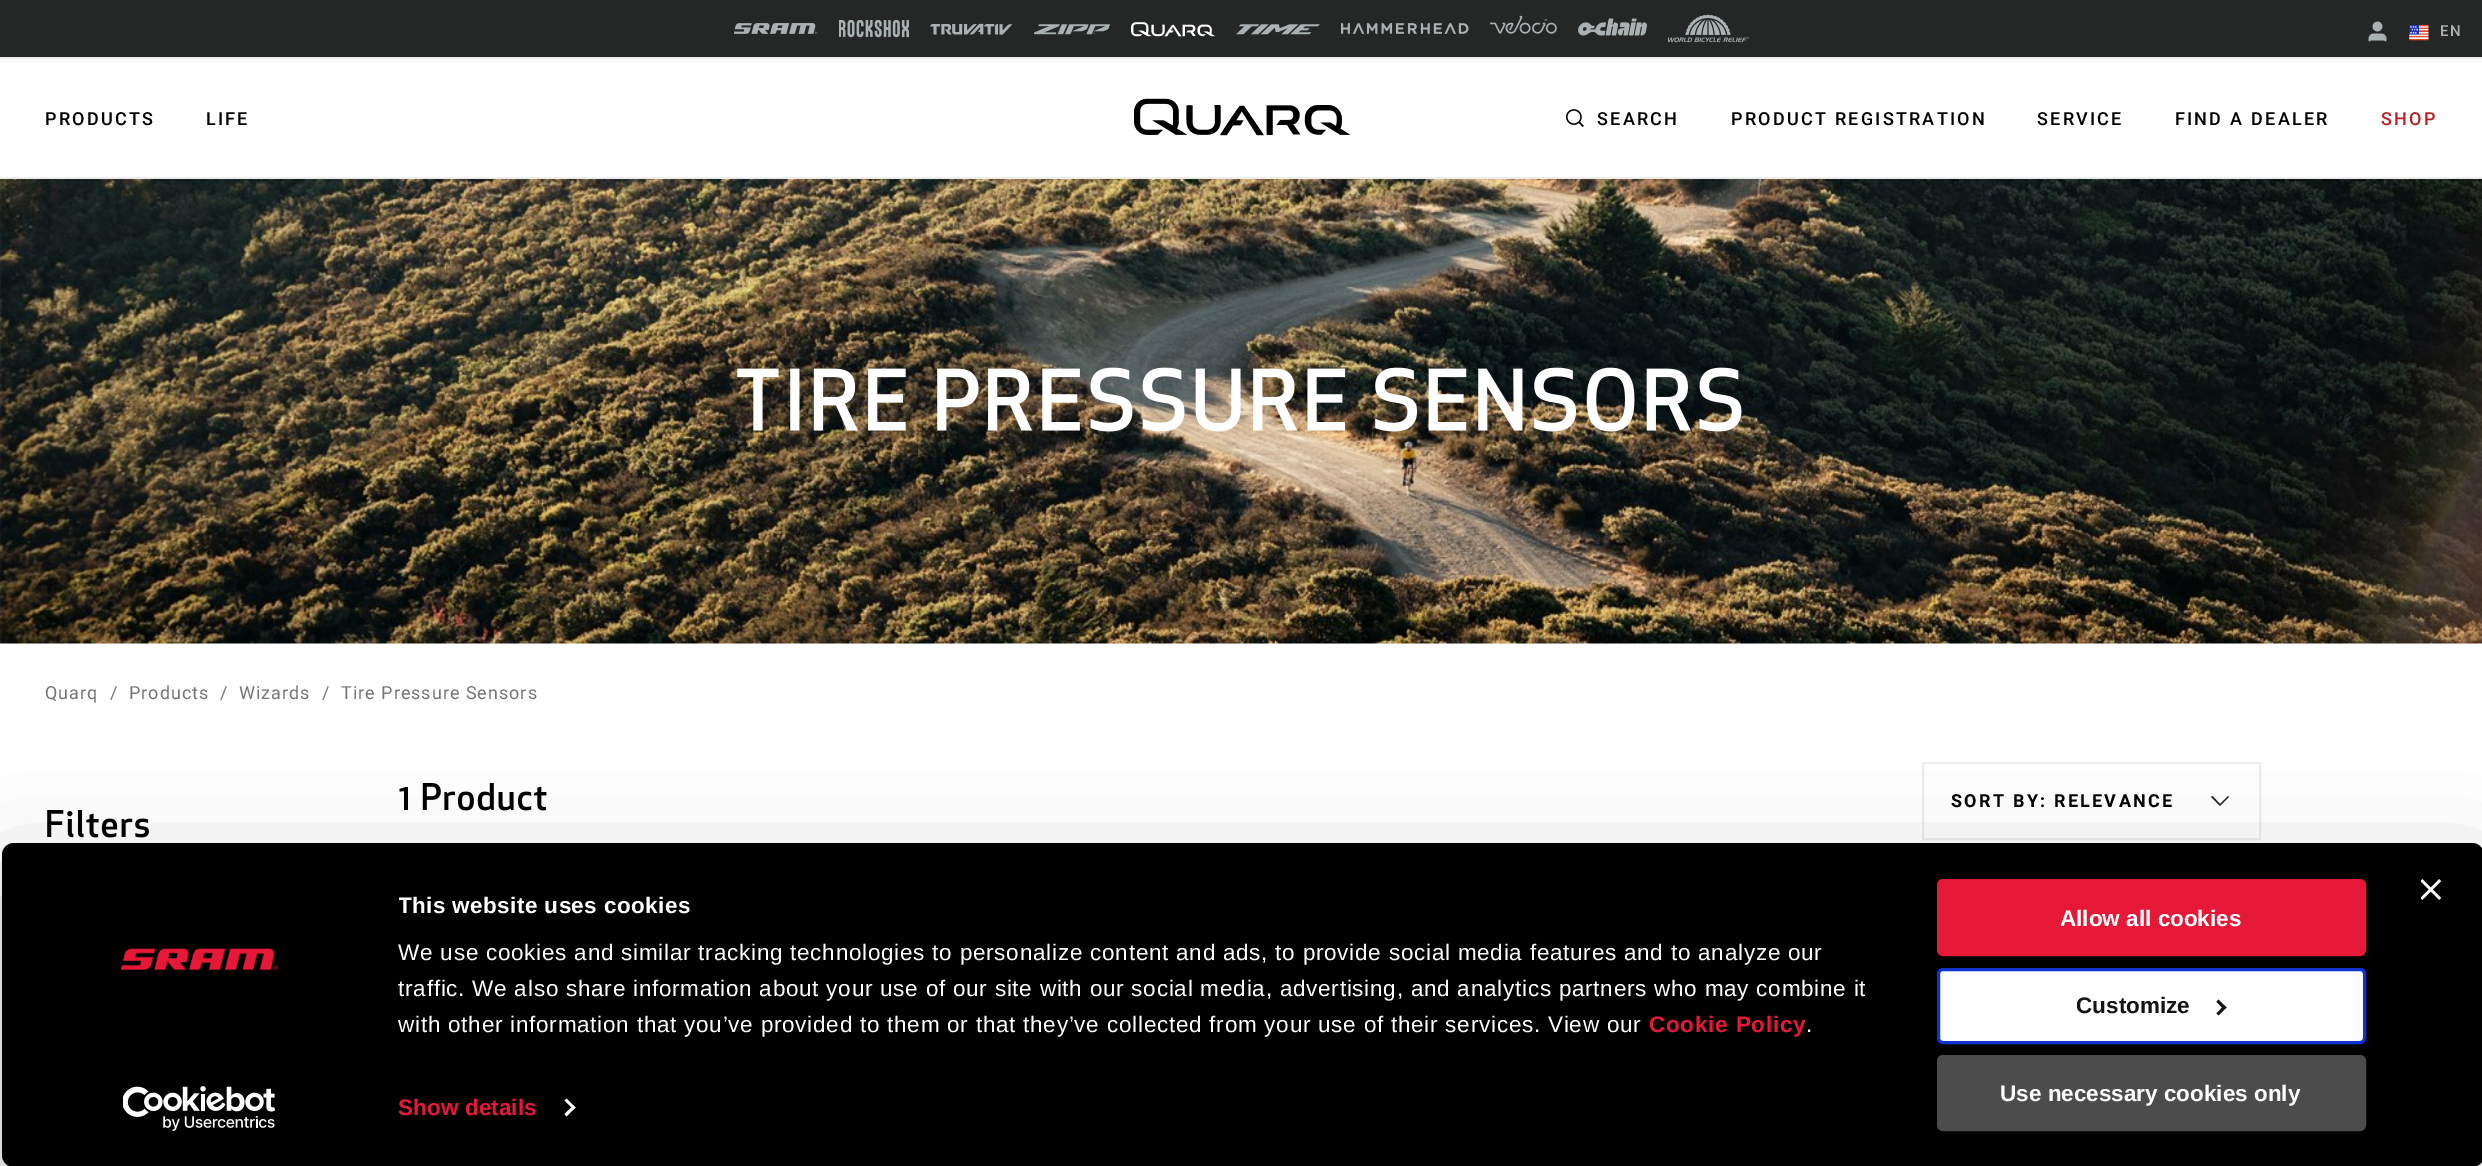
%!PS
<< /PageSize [2482 1166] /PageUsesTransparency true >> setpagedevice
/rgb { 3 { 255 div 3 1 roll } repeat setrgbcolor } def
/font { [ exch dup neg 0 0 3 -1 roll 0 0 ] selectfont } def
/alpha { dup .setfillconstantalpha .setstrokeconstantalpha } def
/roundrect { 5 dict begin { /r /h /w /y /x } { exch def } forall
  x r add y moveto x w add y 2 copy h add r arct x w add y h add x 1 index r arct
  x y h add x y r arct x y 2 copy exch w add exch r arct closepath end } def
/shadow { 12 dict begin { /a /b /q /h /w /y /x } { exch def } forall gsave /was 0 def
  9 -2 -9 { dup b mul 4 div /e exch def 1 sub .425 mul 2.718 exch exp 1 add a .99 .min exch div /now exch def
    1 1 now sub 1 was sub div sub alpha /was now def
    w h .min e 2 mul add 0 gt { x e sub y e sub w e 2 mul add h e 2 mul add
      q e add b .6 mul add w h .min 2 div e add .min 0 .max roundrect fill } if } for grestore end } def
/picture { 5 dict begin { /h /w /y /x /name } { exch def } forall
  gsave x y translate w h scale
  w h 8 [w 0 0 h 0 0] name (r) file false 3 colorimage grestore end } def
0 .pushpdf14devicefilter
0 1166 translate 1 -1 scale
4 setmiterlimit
255 255 255 rgb
0 0 2482 1166 rectfill
[
  [0 177 2482 2 237 237 238]
  [0 0 2482 57 37 38 38]
  [0 57 2482 2 237 237 238]
] { aload pop rgb rectfill } forall
(img/1.rgb) 734 23 84 11 picture
(img/2.rgb) 839 20 70 18 picture
(img/3.rgb) 930 23 83 12 picture
(img/4.rgb) 1034 24 76 11 picture
(img/5.rgb) 1131 22 84 15 picture
(img/6.rgb) 1236 24 84 11 picture
(img/7.rgb) 1341 23 128 11 picture
(img/8.rgb) 1490 15 67 19 picture
(img/9.rgb) 1578 18 69 18 picture
(img/10.rgb) 1668 14 81 29 picture
(img/11.rgb) 2368 21 19 21 picture
(img/12.rgb) 2409 24 20 17 picture
(img/13.rgb) 1566 109 18 18 picture
(img/14.rgb) 1134 98 216 38 picture
(img/15.rgb) 0 179 2482 465 picture
(img/16.rgb) 737 367 1005 65 picture
0 0 0 rgb
406 787 moveto 408 787 lineto 408 810 lineto 404 810 lineto 404 791 lineto 399.5 791.5 lineto 399.5 789 lineto closepath fill
(img/17.rgb) 422 783 125 28 picture
237 237 238 rgb
2 setlinewidth
1923 763 337 76 rectstroke
37 38 38 rgb
2220 804 moveto 2228 796 lineto 2229 797 lineto 2220 806 lineto 2211 797 lineto 2212.5 796 lineto closepath fill
(img/18.rgb) 47 810 102 28 picture
gsave
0 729 moveto 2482 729 lineto 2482 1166 lineto 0 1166 lineto closepath 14 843 moveto 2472 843 lineto 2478.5 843 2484 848.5 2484 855 curveto 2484 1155 lineto 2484 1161.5 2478.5 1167 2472 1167 curveto 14 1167 lineto 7.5 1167 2 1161.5 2 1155 curveto 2 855 lineto 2 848.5 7.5 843 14 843 curveto closepath eoclip newpath
0 0 0 rgb
2 888 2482 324 12 52.5 0.3 shadow
grestore
0 0 0 rgb
2 843 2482 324 12 roundrect fill
(img/19.rgb) 2421 879 21 21 picture
(img/20.rgb) 120 948 159 22 picture
(img/21.rgb) 123 1086 153 45 picture
255 255 255 rgb
566.5 1098.5 moveto 575.5 1107.5 lineto 573.5 1109.5 lineto 564.5 1100.5 lineto closepath fill
573.5 1105.5 moveto 575.5 1107.5 lineto 566.5 1116.5 lineto 564.5 1114 lineto closepath fill
229 25 55 rgb
1938.5 880.5 426 74 4.5 roundrect gsave fill grestore
3 setlinewidth
stroke
255 255 255 rgb
1938.5 969.5 426 73 4.5 roundrect gsave fill grestore
16 50 207 rgb
stroke
20 20 20 rgb
2218.5 999.5 moveto 2226.5 1007.5 lineto 2224 1009.5 lineto 2216.5 1002 lineto closepath fill
2224 1005.5 moveto 2226.5 1007.5 lineto 2218.5 1015.5 lineto 2216.5 1013.5 lineto closepath fill
76 76 76 rgb
1938.5 1056.5 426 73 4.5 roundrect gsave fill grestore
stroke
/Roboto-Medium 15 font
170 177 179 rgb
2440 36 moveto 2 0 (EN) ashow
/Roboto-Medium 18 font
0 0 0 rgb
45 125 moveto 2.25 0 (PRODUCTS) ashow
206 125 moveto 2.25 0 (LIFE) ashow
1597 125 moveto 2.25 0 (SEARCH) ashow
1731 125 moveto 2.25 0 (PRODUCT REGISTRATION) ashow
2037 125 moveto 2.25 0 (SERVICE) ashow
2175 125 moveto 2.25 0 (FIND A DEALER) ashow
184 32 37 rgb
2381 125 moveto 2.25 0 (SHOP) ashow
/Roboto-Regular 18 font
118 118 118 rgb
45 699 moveto 1 0 (Quarq) ashow
110 699 moveto 1 0 (/) ashow
129 699 moveto 1 0 (Products) ashow
220 699 moveto 1 0 (/) ashow
239 699 moveto 1 0 (Wizards) ashow
322 699 moveto 1 0 (/) ashow
341 699 moveto 1 0 (Tire Pressure Sensors) ashow
/Roboto-Bold 18 font
0 0 0 rgb
1951 807 moveto 2.25 0 (SORT BY: RELEVANCE) ashow
gsave
399 888 1496 155 rectclip
/LiberationSans-Bold 22.5 font
255 255 255 rgb
398 913 moveto 0.4 0 (This website uses cookies) ashow
grestore
/LiberationSans-Regular 22.5 font
255 255 255 rgb
398 960 moveto 0.75 0 (We use cookies and similar tracking technologies to personalize content and ads, to provide social media features and to analyze our) ashow
398 996 moveto 0.75 0 (traffic. We also share information about your use of our site with our social media, advertising, and analytics partners who may combine it) ashow
398 1032 moveto 0.75 0 (with other information that you’ve provided to them or that they’ve collected from your use of their services. View our) ashow
/LiberationSans-Bold 22.5 font
229 25 55 rgb
1649 1032 moveto 0.75 0 (Cookie Policy) ashow
/LiberationSans-Regular 22.5 font
255 255 255 rgb
1806 1032 moveto 0.75 0 (.) ashow
/LiberationSans-Bold 22.5 font
229 25 55 rgb
398 1115 moveto 0.1 0 (Show details) ashow
255 255 255 rgb
2060 926 moveto (Allow all cookies) show
20 20 20 rgb
2076 1013 moveto (Customize) show
255 255 255 rgb
2000 1101 moveto (Use necessary cookies only) show
.poppdf14devicefilter showpage
